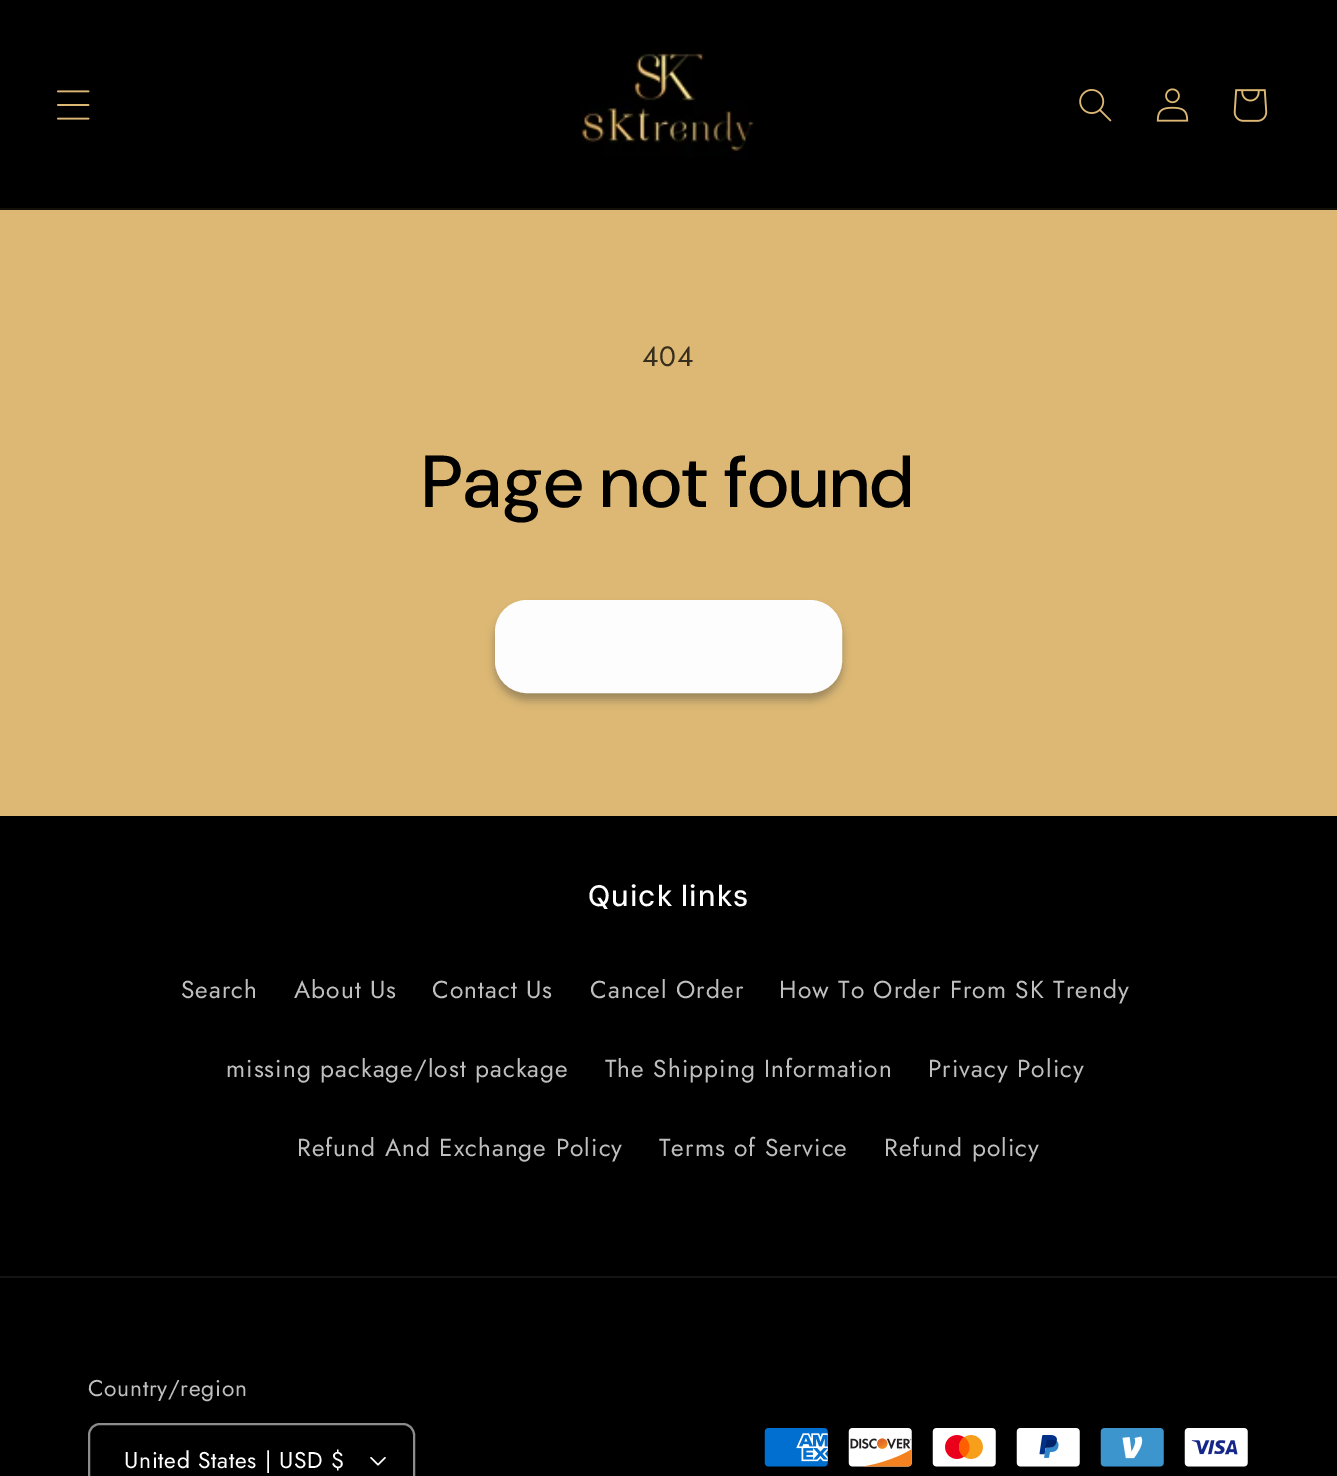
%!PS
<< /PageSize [1337 1476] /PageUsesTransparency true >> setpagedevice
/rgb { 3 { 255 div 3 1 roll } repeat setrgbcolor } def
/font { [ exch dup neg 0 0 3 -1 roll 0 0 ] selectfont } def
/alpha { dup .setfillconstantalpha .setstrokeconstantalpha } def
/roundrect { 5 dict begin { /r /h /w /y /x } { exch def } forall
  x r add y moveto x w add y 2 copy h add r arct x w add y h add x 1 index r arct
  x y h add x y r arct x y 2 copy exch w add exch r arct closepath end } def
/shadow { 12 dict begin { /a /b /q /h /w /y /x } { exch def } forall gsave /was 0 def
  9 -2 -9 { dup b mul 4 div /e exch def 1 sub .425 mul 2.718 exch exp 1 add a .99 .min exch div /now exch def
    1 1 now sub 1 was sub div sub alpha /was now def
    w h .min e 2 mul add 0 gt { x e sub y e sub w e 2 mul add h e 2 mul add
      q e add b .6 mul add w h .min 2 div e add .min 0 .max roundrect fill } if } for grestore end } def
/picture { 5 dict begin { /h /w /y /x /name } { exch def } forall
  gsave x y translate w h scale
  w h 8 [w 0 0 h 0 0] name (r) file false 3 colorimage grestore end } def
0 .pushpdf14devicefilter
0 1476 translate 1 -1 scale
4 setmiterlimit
221 184 116 rgb
0 0 1337 1476 rectfill
0 0 0 rgb
0 0 1337 208 rectfill
18 15 9 rgb
0 208 1337 2 rectfill
(img/1.rgb) 57 90 33 30 picture
(img/2.rgb) 581 50 173 107 picture
(img/3.rgb) 1079 89 33 33 picture
(img/4.rgb) 1156 88 33 34 picture
(img/5.rgb) 1233 89 35 33 picture
0 17 40 rgb
495 607 347 93 32 4.5 0.3 shadow
253 253 253 rgb
498.5 603.5 340 86 28.5 roundrect gsave fill grestore
7 setlinewidth
stroke
0 0 0 rgb
0 816 1337 660 rectfill
20 20 20 rgb
0 1276 1337 2 rectfill
(img/6.rgb) 370 1457 16 9 picture
140 140 140 rgb
2 setlinewidth
89 1424 325 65 11 roundrect stroke
(img/7.rgb) 764 1428 64 39 picture
(img/8.rgb) 848 1428 64 39 picture
(img/9.rgb) 932 1428 64 39 picture
(img/10.rgb) 1016 1428 64 39 picture
(img/11.rgb) 1100 1428 64 39 picture
(img/12.rgb) 1184 1428 64 39 picture
/Jost-Regular 28 font
55 46 29 rgb
642 366 moveto 1.05 0 (404) ashow
/DMSans-Medium 73.5 font
0 0 0 rgb
422 507 moveto 1.1 0 (Page not found) ashow
/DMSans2-Medium 29.5 font
255 255 255 rgb
588 906 moveto -1 0 32 1.1 0 (Quick links) awidthshow
/Jost-Regular 24.5 font
191 191 191 rgb
181 998 moveto 1.05 0 (Search) ashow
294 998 moveto 1.05 0 (About Us) ashow
432 998 moveto 1.05 0 (Contact Us) ashow
590 998 moveto 1.05 0 (Cancel Order) ashow
779 998 moveto 1.05 0 (How To Order From SK Trendy) ashow
226 1077 moveto 1.05 0 (missing package/lost package) ashow
605 1077 moveto 1.05 0 (The Shipping Information) ashow
928 1077 moveto 1.05 0 (Privacy Policy) ashow
297 1156 moveto 1.05 0 (Refund And Exchange Policy) ashow
659 1156 moveto 1.05 0 (Terms of Service) ashow
884 1156 moveto 1.05 0 (Refund policy) ashow
/Jost-Regular 22.75 font
88 1396 moveto 0.7 0 (Country/region) ashow
255 255 255 rgb
124 1468 moveto 0.7 0 (United States | USD $) ashow
.poppdf14devicefilter showpage
